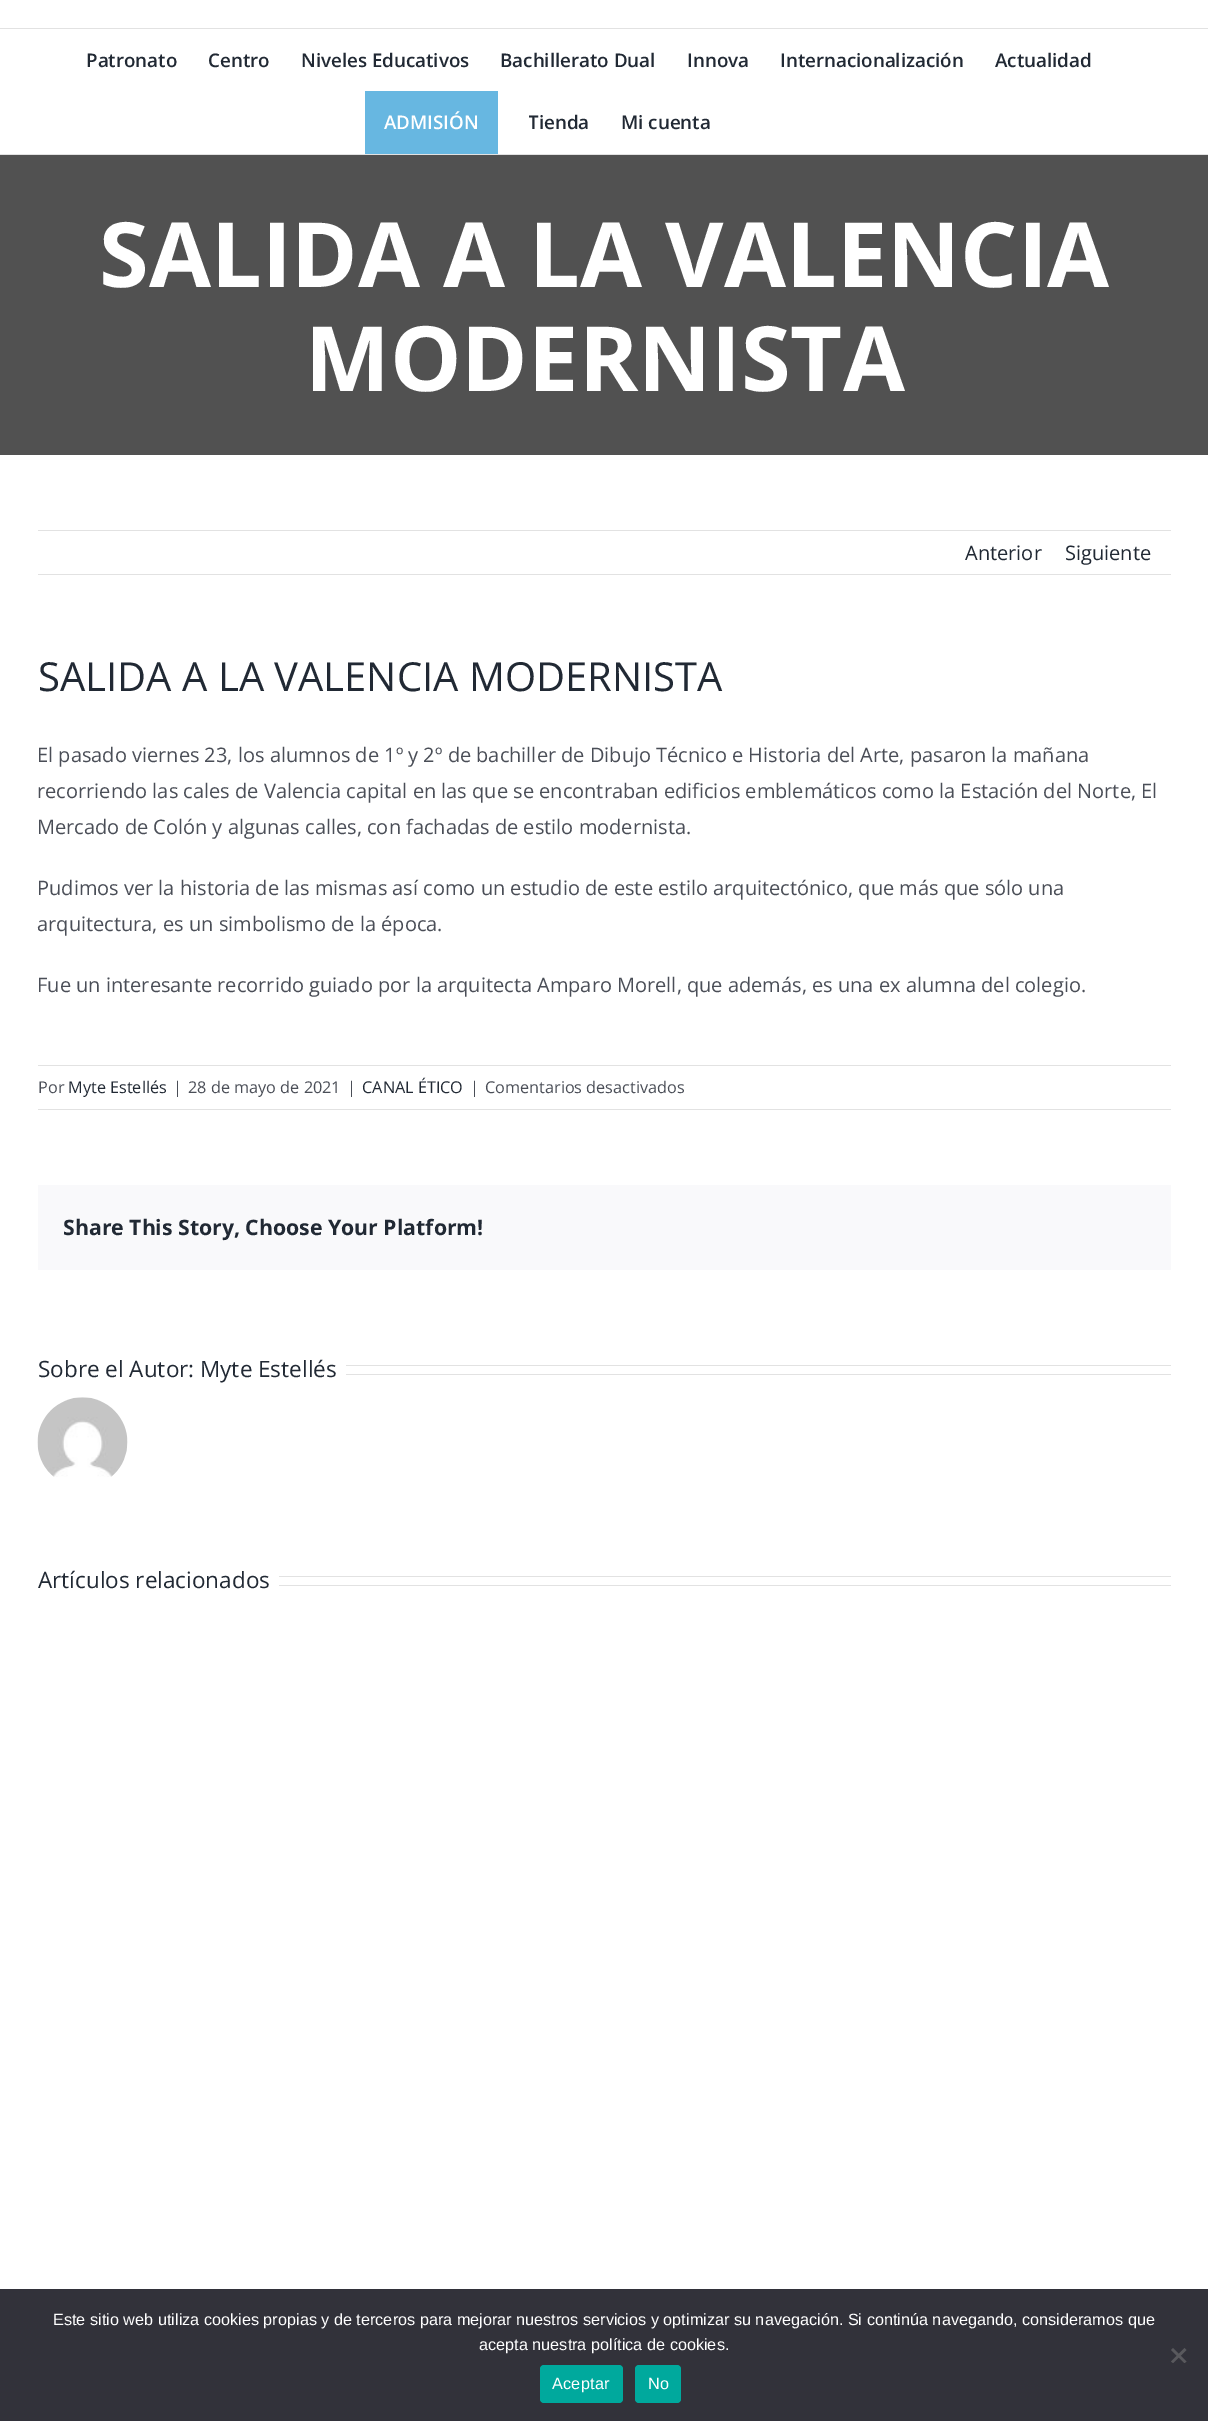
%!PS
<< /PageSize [1208 2421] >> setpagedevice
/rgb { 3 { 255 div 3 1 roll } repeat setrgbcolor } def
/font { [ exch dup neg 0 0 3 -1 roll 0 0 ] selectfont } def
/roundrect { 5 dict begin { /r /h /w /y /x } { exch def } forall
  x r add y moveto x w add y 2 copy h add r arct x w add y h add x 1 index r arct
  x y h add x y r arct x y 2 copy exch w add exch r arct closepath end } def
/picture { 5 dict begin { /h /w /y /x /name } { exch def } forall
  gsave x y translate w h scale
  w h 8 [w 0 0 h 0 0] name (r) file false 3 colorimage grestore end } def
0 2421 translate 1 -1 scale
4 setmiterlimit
255 255 255 rgb
0 0 1208 2421 rectfill
[
  [0 28 1208 1 226 226 226]
  [0 154 1208 1 226 226 226]
  [365 91 133 63 103 183 225]
  [0 155 1208 300 81 81 81]
  [38 530 1133 1 226 226 226]
  [38 574 1133 1 226 226 226]
  [38 1065 1133 1 226 226 226]
  [38 1109 1133 1 226 226 226]
  [38 1185 1133 85 249 249 251]
  [346 1365 825 1 226 226 226]
  [346 1374 825 1 226 226 226]
] { aload pop rgb rectfill } forall
(img/1.rgb) 37 1397 91 80 picture
[
  [279 1576 892 1 226 226 226]
  [279 1585 892 1 226 226 226]
  [0 2289 1208 132 50 50 58]
] { aload pop rgb rectfill } forall
89 89 93 rgb
1184.5 2348 moveto 1186.5 2350 lineto 1173 2363 lineto 1171 2361.5 lineto closepath fill
1171 2350 moveto 1173 2348 lineto 1186.5 2361.5 lineto 1184.5 2363 lineto closepath fill
0 169 157 rgb
540 2365 83 38 4 roundrect fill
635 2365 46 38 4 roundrect fill
/OpenSans-SemiBold 18.75 font
33 41 52 rgb
[
  [(Patronato) 86 67]
  [(Centro) 208 67]
  [(Niveles Educativos) 301 67]
  [(Bachillerato Dual) 500 67]
  [(Innova) 687 67]
  [(Internacionalización) 780 67]
  [(Actualidad) 995 67]
] { aload pop moveto show } forall
255 255 255 rgb
384 129 moveto (ADMISIÓN) show
gsave
529 91 92 63 rectclip
33 41 52 rgb
528 129 moveto (Tienda) show
grestore
33 41 52 rgb
621 129 moveto (Mi cuenta) show
/OpenSans-Bold 90 font
255 255 255 rgb
99 287 moveto (SALIDA A LA VALENCIA) show
305 391 moveto (MODERNISTA) show
/OpenSans-Regular 20 font
33 41 52 rgb
965 560 moveto (Anterior) show
1065 560 moveto (Siguiente) show
/OpenSans-Regular 40 font
38 691 moveto (SALIDA A LA VALENCIA MODERNISTA) show
/OpenSans-Regular 20 font
74 78 87 rgb
[
  [(El pasado viernes 23, los alumnos de 1º y 2º de bachiller de Dibujo Técnico e Historia del Arte, pasaron la mañana) 37 762]
  [(recorriendo las cales de Valencia capital en las que se encontraban edificios emblemáticos como la Estación del Norte, El) 37 798]
  [(Mercado de Colón y algunas calles, con fachadas de estilo modernista.) 37 834]
  [(Pudimos ver la historia de las mismas así como un estudio de este estilo arquitectónico, que más que sólo una) 37 895]
  [(arquitectura, es un simbolismo de la época.) 37 931]
  [(Fue un interesante recorrido guiado por la arquitecta Amparo Morell, que además, es una ex alumna del colegio.) 37 992]
] { aload pop moveto show } forall
/OpenSans-Regular 16.25 font
38 1093 moveto (Por) show
33 41 52 rgb
68 1093 moveto (Myte Estellés) show
74 78 87 rgb
[
  [(|) 173 1093]
  [(28 de mayo de 2021) 188 1093]
  [(|) 347 1093]
] { aload pop moveto show } forall
33 41 52 rgb
362 1093 moveto (CANAL ÉTICO) show
74 78 87 rgb
470 1093 moveto (|) show
485 1093 moveto (Comentarios desactivados) show
/OpenSans-Bold 21.25 font
33 41 52 rgb
63 1235 moveto (Share This Story, Choose Your Platform!) show
/OpenSans-Regular 22.5 font
38 1377 moveto (Sobre el Autor: Myte Estellés) show
38 1588 moveto (Artículos relacionados) show
/LiberationSans-Regular 16.25 font
255 255 255 rgb
53 2325 moveto (Este sitio web utiliza cookies propias y de terceros para mejorar nuestros servicios y optimizar su navegación. Si continúa navegando, consideramos que) show
479 2350 moveto (acepta nuestra política de cookies.) show
552 2389 moveto 0.25 0 (Aceptar) ashow
648 2389 moveto 0.25 0 (No) ashow
showpage
